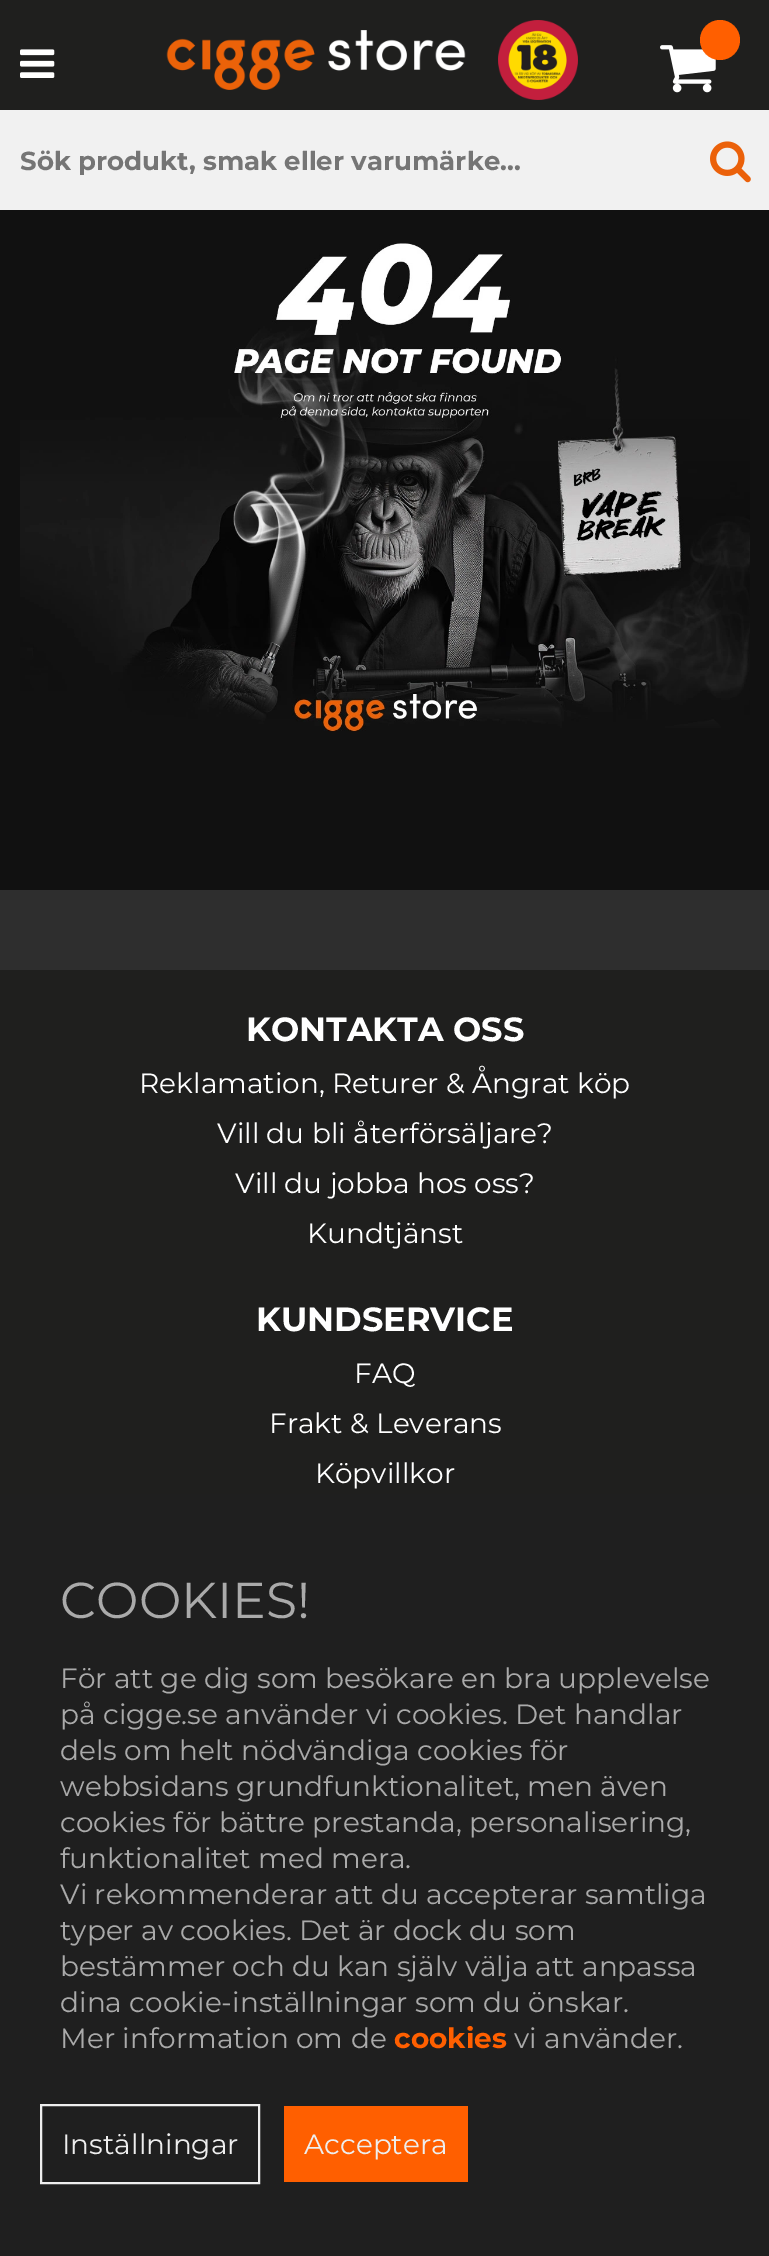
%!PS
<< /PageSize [769 2256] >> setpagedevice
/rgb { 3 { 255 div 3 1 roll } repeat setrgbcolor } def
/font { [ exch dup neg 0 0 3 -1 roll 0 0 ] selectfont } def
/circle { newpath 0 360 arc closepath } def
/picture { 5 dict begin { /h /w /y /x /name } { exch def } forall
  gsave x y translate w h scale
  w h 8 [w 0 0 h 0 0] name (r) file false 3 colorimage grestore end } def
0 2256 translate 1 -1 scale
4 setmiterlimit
17 17 17 rgb
0 0 769 2256 rectfill
31 31 30 rgb
0 0 769 110 rectfill
(img/1.rgb) 20 49 35 29 picture
(img/2.rgb) 166 30 300 60 picture
(img/3.rgb) 498 20 80 80 picture
(img/4.rgb) 660 45 56 48 picture
255 95 0 rgb
720 40 20 circle fill
241 241 241 rgb
0 110 769 100 rectfill
(img/5.rgb) 710 141 41 42 picture
(img/6.rgb) 20 243 730 489 picture
[
  [0 890 769 80 46 46 46]
  [0 970 769 524 31 31 30]
  [0 1494 769 762 31 31 31]
] { aload pop rgb rectfill } forall
238 238 238 rgb
2 setlinewidth
41 2105 218 78 rectstroke
255 95 0 rgb
284 2106 184 76 rectfill
/Montserrat-Bold 26 font
117 117 117 rgb
20 170 moveto (Sök produkt, smak eller varumärke...) show
/Montserrat-Bold 33.5 font
255 255 255 rgb
246 1041 moveto (KONTAKTA OSS) show
/Montserrat-Regular 28 font
[
  [(Reklamation, Returer & Ångrat köp) 139 1093]
  [(Vill du bli återförsäljare?) 217 1143]
  [(Vill du jobba hos oss?) 235 1193]
  [(Kundtjänst) 307 1243]
] { aload pop moveto show } forall
/Montserrat-Bold 33.5 font
256 1331 moveto (KUNDSERVICE) show
/Montserrat-Regular 28 font
[
  [(FAQ) 354 1383]
  [(Frakt & Leverans) 269 1433]
  [(Köpvillkor) 315 1483]
] { aload pop moveto show } forall
/Montserrat-Regular 50.5 font
170 170 170 rgb
60 1618 moveto (COOKIES!) show
/Montserrat-Regular 28 font
[
  [(För att ge dig som besökare en bra upplevelse) 60 1688]
  [(på cigge.se använder vi cookies. Det handlar) 60 1724]
  [(dels om helt nödvändiga cookies för) 60 1760]
  [(webbsidans grundfunktionalitet, men även) 60 1796]
  [(cookies för bättre prestanda, personalisering,) 60 1832]
  [(funktionalitet med mera.) 60 1868]
  [(Vi rekommenderar att du accepterar samtliga) 60 1904]
  [(typer av cookies. Det är dock du som) 60 1940]
  [(bestämmer och du kan själv välja att anpassa) 60 1976]
  [(dina cookie-inställningar som du önskar.) 60 2012]
  [(Mer information om de) 60 2048]
] { aload pop moveto show } forall
/Montserrat-Bold 28 font
255 95 0 rgb
394 2048 moveto (cookies) show
/Montserrat-Regular 28 font
170 170 170 rgb
514 2048 moveto (vi använder.) show
238 238 238 rgb
62 2154 moveto (Inställningar) show
304 2154 moveto (Acceptera) show
showpage
